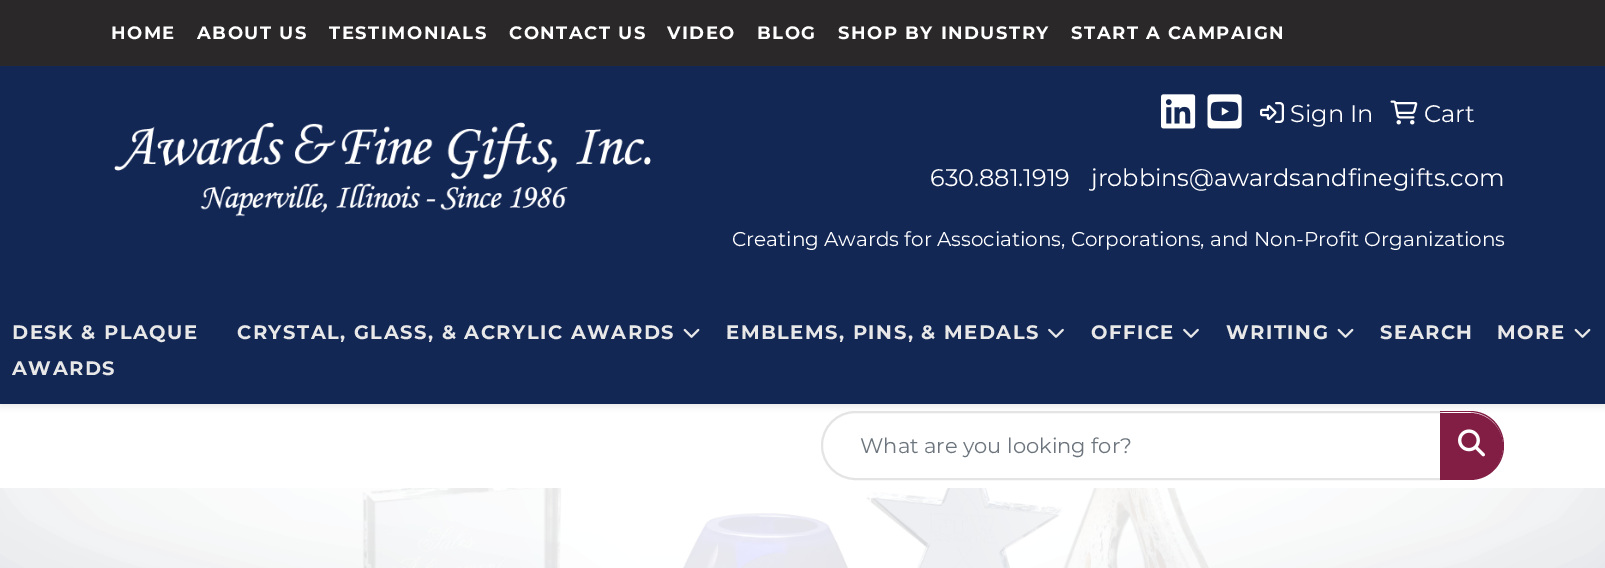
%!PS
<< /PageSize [1605 568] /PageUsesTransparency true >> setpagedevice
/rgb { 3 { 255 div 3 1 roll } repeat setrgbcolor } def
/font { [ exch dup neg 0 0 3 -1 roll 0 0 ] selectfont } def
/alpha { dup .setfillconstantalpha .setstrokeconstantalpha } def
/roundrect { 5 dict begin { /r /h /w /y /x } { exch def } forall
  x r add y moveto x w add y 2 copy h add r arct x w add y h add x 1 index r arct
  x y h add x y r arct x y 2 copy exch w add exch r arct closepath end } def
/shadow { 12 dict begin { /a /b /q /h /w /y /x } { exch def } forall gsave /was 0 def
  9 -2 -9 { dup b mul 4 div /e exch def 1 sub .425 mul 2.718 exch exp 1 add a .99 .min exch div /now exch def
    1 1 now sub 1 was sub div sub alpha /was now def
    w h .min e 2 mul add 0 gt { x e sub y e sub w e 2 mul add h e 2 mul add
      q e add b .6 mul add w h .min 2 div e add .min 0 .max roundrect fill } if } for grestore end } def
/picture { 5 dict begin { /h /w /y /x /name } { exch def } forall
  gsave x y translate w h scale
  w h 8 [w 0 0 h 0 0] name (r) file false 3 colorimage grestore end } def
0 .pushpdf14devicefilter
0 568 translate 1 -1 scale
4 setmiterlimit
255 255 255 rgb
0 0 1605 568 rectfill
19 39 85 rgb
0 66 1605 230 rectfill
42 40 40 rgb
0 0 1605 66 rectfill
(img/1.rgb) 114 122 537 95 picture
(img/2.rgb) 1161 94 35 35 picture
(img/3.rgb) 1207 94 35 35 picture
(img/4.rgb) 1260 102 24 21 picture
(img/5.rgb) 1390 100 28 25 picture
0 0 0 rgb
0 299 1605 108 0 3 0.07 shadow
19 39 85 rgb
0 296 1605 108 rectfill
(img/6.rgb) 683 328 17 10 picture
(img/7.rgb) 1048 328 16 10 picture
(img/7.rgb) 1183 328 16 10 picture
(img/6.rgb) 1337 328 17 10 picture
(img/6.rgb) 1574 328 17 10 picture
228 228 228 rgb
2 setlinewidth
855.5 412 moveto 1441 412 lineto 1441 479 lineto 855.5 479 lineto 837 479 822 464 822 445.5 curveto 822 427 837 412 855.5 412 curveto closepath stroke
130 29 67 rgb
1440 413 moveto 1470 413 lineto 1488 413 1503 428 1503 446 curveto 1503 464 1488 479 1470 479 curveto 1440 479 lineto closepath fill
1440 411 moveto 1470 411 lineto 1489 411 1504 426 1504 446 curveto 1504 465 1489 480 1470 480 curveto 1440 480 lineto closepath 1440 412 moveto 1470 412 lineto 1488 412 1503 427 1503 446 curveto 1503 464 1488 478 1470 478 curveto 1440 478 lineto closepath eofill
(img/8.rgb) 1458 429 27 28 picture
(img/9.rgb) 0 488 1605 80 picture
/Montserrat-Bold 18 font
255 255 255 rgb
111 39 moveto 1.5 0 (HOME) ashow
197 39 moveto 1.5 0 (ABOUT US) ashow
329 39 moveto 1.5 0 (TESTIMONIALS) ashow
509 39 moveto 1.5 0 (CONTACT US) ashow
667 39 moveto 1.5 0 (VIDEO) ashow
757 39 moveto 1.5 0 (BLOG) ashow
838 39 moveto 1.5 0 (SHOP BY INDUSTRY) ashow
1071 39 moveto 1.5 0 (START A CAMPAIGN) ashow
/Montserrat-Thin 24 font
[
  [(Sign In) 1290 122]
  [(Cart) 1424 122]
  [(630.881.1919) 930 186]
  [(jrobbins@awardsandfinegifts.com) 1091 186]
] { aload pop moveto show } forall
/Montserrat-Thin 20 font
732 246 moveto (Creating Awards for Associations, Corporations, and Non-Profit Organizations) show
/Montserrat-Bold 19.5 font
232 232 232 rgb
12 339 moveto 1.5 0 (DESK & PLAQUE) ashow
12 375 moveto 1.5 0 (AWARDS) ashow
237 339 moveto 1.5 0 (CRYSTAL, GLASS, & ACRYLIC AWARDS) ashow
726 339 moveto 1.5 0 (EMBLEMS, PINS, & MEDALS) ashow
1091 339 moveto 1.5 0 (OFFICE) ashow
1226 339 moveto 1.5 0 (WRITING) ashow
1380 339 moveto 1.5 0 (SEARCH) ashow
1497 339 moveto 1.5 0 (MORE) ashow
/Montserrat-Thin 21 font
108 117 125 rgb
860 453 moveto (What are you looking for?) show
.poppdf14devicefilter showpage
